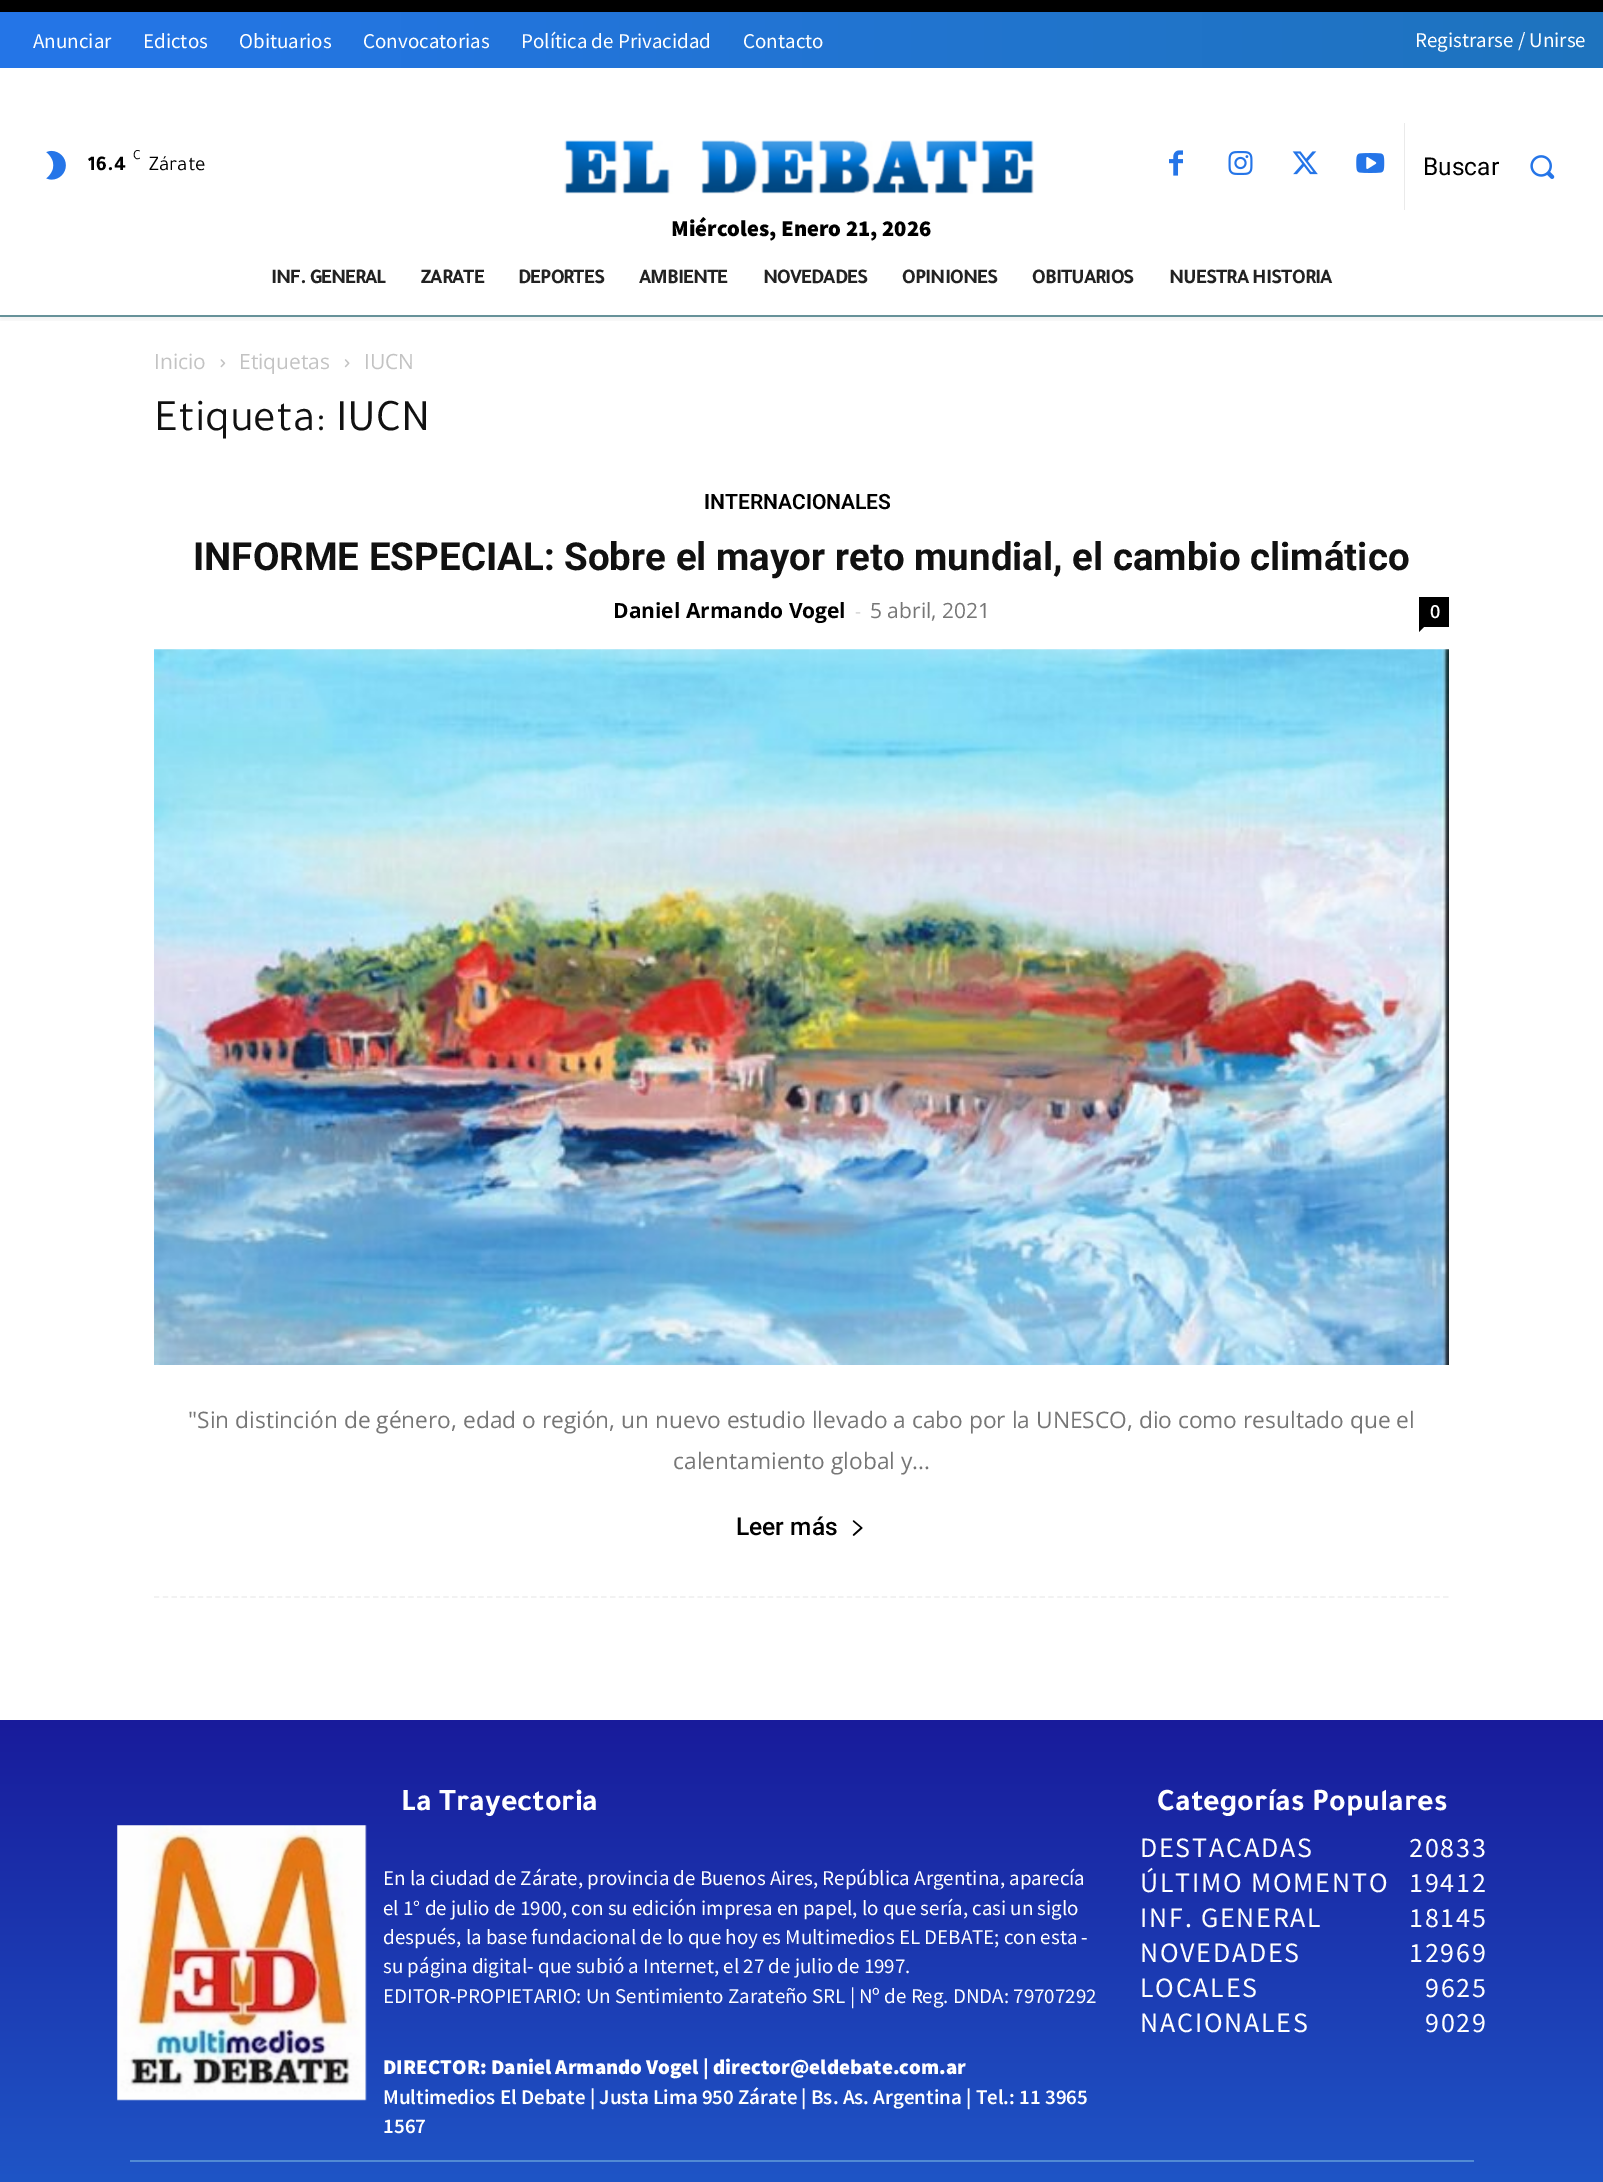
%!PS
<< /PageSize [1603 2182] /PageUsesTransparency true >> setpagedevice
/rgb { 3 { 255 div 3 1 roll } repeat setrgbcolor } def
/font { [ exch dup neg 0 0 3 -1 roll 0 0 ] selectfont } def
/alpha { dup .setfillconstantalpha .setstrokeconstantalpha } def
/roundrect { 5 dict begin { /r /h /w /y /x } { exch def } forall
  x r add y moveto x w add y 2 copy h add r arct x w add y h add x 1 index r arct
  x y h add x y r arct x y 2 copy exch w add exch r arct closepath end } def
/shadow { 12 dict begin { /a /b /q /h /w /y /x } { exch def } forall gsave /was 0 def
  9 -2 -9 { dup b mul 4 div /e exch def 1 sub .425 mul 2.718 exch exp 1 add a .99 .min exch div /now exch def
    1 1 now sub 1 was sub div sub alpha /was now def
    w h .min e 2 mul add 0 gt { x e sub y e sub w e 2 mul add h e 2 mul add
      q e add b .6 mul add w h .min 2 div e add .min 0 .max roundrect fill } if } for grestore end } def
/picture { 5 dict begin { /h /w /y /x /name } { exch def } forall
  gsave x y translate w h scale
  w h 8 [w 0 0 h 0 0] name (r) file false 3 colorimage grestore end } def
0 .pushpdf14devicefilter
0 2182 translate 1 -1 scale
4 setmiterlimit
255 255 255 rgb
0 0 1603 2182 rectfill
0 0 0 rgb
0 0 1603 12 rectfill
gsave 0 12 moveto 1603 12 lineto 1603 68 lineto 0 68 lineto closepath clip newpath
<< /ShadingType 2 /ColorSpace /DeviceRGB /Coords [1603 40 0 40] /Extend [true true] /Function << /FunctionType 2 /Domain [0 1] /C0 [0.118 0.451 0.745] /C1 [0.145 0.459 0.91] /N 1 >> >> shfill grestore
(img/1.rgb) 46 150 20 30 picture
(img/2.rgb) 564 140 470 54 picture
(img/3.rgb) 1169 150 14 26 picture
(img/4.rgb) 1228 151 25 24 picture
(img/5.rgb) 1292 151 26 24 picture
(img/6.rgb) 1356 153 29 20 picture
102 146 153 rgb
0 315 1603 2 rectfill
gsave
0 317 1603 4 rectclip
0 0 0 rgb
0 214 1603 106 0 3.5 0.06 shadow
grestore
234 234 234 rgb
1404 123 1 87 rectfill
(img/7.rgb) 1530 155 25 24 picture
(img/8.rgb) 220 359 6 9 picture
(img/9.rgb) 344 359 6 9 picture
242 242 242 rgb
1.8 setlinewidth
[5.25 3.52] 0 setdash
154 1597 moveto 1449 1597 lineto stroke
0 0 0 rgb
1419 597 30 30 rectfill
1419 626.5 moveto 1424.5 626.5 lineto 1419 632 lineto closepath fill
(img/10.rgb) 154 649 1295 716 picture
(img/11.rgb) 852 1520 11 16 picture
gsave 0 1720 moveto 1603 1720 lineto 1603 2182 lineto 0 2182 lineto closepath clip newpath
<< /ShadingType 2 /ColorSpace /DeviceRGB /Coords [802 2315 802 1720] /Extend [true true] /Function << /FunctionType 2 /Domain [0 1] /C0 [0.129 0.4 0.827] /C1 [0.094 0.106 0.608] /N 1 >> >> shfill grestore
(img/12.rgb) 117 1825 250 276 picture
81 138 212 rgb
130 2160 1344 2 rectfill
/SourceSansPro-Regular 21 font
255 255 255 rgb
[
  [(Anunciar) 33 48]
  [(Edictos) 143 48]
  [(Obituarios) 239 48]
  [(Convocatorias) 363 48]
  [(Política de Privacidad) 521 48]
  [(Contacto) 743 48]
  [(Registrarse / Unirse) 1415 47]
] { aload pop moveto show } forall
/Tajawal-Regular 14 font
0 0 0 rgb
133 159 moveto (C) show
/Tajawal-Bold 21 font
88 170 moveto (16.4) show
/Tajawal-Regular 21 font
149 170 moveto (Zárate) show
/Roboto-Regular 24.5 font
1423 175 moveto (Buscar) show
/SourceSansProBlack-Black 22.75 font
671 236 moveto (Miércoles, Enero 21, 2026) show
/Tajawal-Bold 21 font
34 34 34 rgb
271 283 moveto -0.9 0 (INF. GENERAL) ashow
421 283 moveto -0.9 0 (ZARATE) ashow
518 283 moveto -0.9 0 (DEPORTES) ashow
639 283 moveto -0.9 0 (AMBIENTE) ashow
763 283 moveto -0.9 0 (NOVEDADES) ashow
902 283 moveto -0.9 0 (OPINIONES) ashow
1032 283 moveto -0.9 0 (OBITUARIOS) ashow
1169 283 moveto -0.9 0 (NUESTRA HISTORIA) ashow
/OpenSans-Regular 21 font
195 195 195 rgb
[
  [(Inicio) 154 369]
  [(Etiquetas) 239 369]
  [(IUCN) 364 369]
] { aload pop moveto show } forall
/Tajawal-Regular 45.5 font
17 17 17 rgb
154 430 moveto (Etiqueta: IUCN) show
/Roboto-SemiBold 21 font
0 0 0 rgb
704 509 moveto (INTERNACIONALES) show
/Roboto-Bold 38.5 font
17 17 17 rgb
193 570 moveto (INFORME ESPECIAL: Sobre el mayor reto mundial, el cambio climático) show
/OpenSans-Bold 21 font
0 0 0 rgb
613 618 moveto (Daniel Armando Vogel) show
/OpenSans-Regular 19 font
204 204 204 rgb
855 618 moveto (-) show
/OpenSans-Regular 21 font
118 118 118 rgb
870 618 moveto (5 abril, 2021) show
/OpenSans-SemiBold 18 font
255 255 255 rgb
1430 618 moveto (0) show
/OpenSans-Regular 22.75 font
118 118 118 rgb
188 1428 moveto ("Sin distinción de género, edad o región, un nuevo estudio llevado a cabo por la UNESCO, dio como resultado que el) show
673 1469 moveto (calentamiento global y...) show
/Roboto-Medium 24.5 font
0 0 0 rgb
736 1535 moveto (Leer más) show
/Tajawal-Bold 31.5 font
255 255 255 rgb
401 1810 moveto (La Trayectoria) show
/SourceSansPro-Regular 21 font
[
  [(En la ciudad de Zárate, provincia de Buenos Aires, República Argentina, aparecía) 383 1885]
  [(el 1° de julio de 1900, con su edición impresa en papel, lo que sería, casi un siglo) 383 1915]
  [(después, la base fundacional de lo que hoy es Multimedios EL DEBATE; con esta -) 383 1944]
  [(su página digital- que subió a Internet, el 27 de julio de 1997.) 383 1973]
  [(EDITOR-PROPIETARIO: Un Sentimiento Zarateño SRL | Nº de Reg. DNDA: 79707292) 383 2003]
] { aload pop moveto show } forall
/SourceSansProBlack-Black 21 font
383 2074 moveto (DIRECTOR: Daniel Armando Vogel | director@eldebate.com.ar) show
/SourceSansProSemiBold-SemiBold 21 font
383 2104 moveto (Multimedios El Debate | Justa Lima 950 Zárate | Bs. As. Argentina | Tel.: 11 3965) show
383 2133 moveto (1567) show
/Tajawal-Bold 31.5 font
1157 1810 moveto (Categorías Populares) show
/SourceSansPro-Regular 28 font
1140 1857 moveto 1.75 0 (DESTACADAS) ashow
1409 1857 moveto 1.75 0 (20833) ashow
1140 1892 moveto 1.75 0 (ÚLTIMO MOMENTO) ashow
1409 1892 moveto 1.75 0 (19412) ashow
1140 1927 moveto 1.75 0 (INF. GENERAL) ashow
1409 1927 moveto 1.75 0 (18145) ashow
1140 1962 moveto 1.75 0 (NOVEDADES) ashow
1409 1962 moveto 1.75 0 (12969) ashow
1140 1997 moveto 1.75 0 (LOCALES) ashow
1425 1997 moveto 1.75 0 (9625) ashow
1140 2032 moveto 1.75 0 (NACIONALES) ashow
1425 2032 moveto 1.75 0 (9029) ashow
.poppdf14devicefilter showpage
